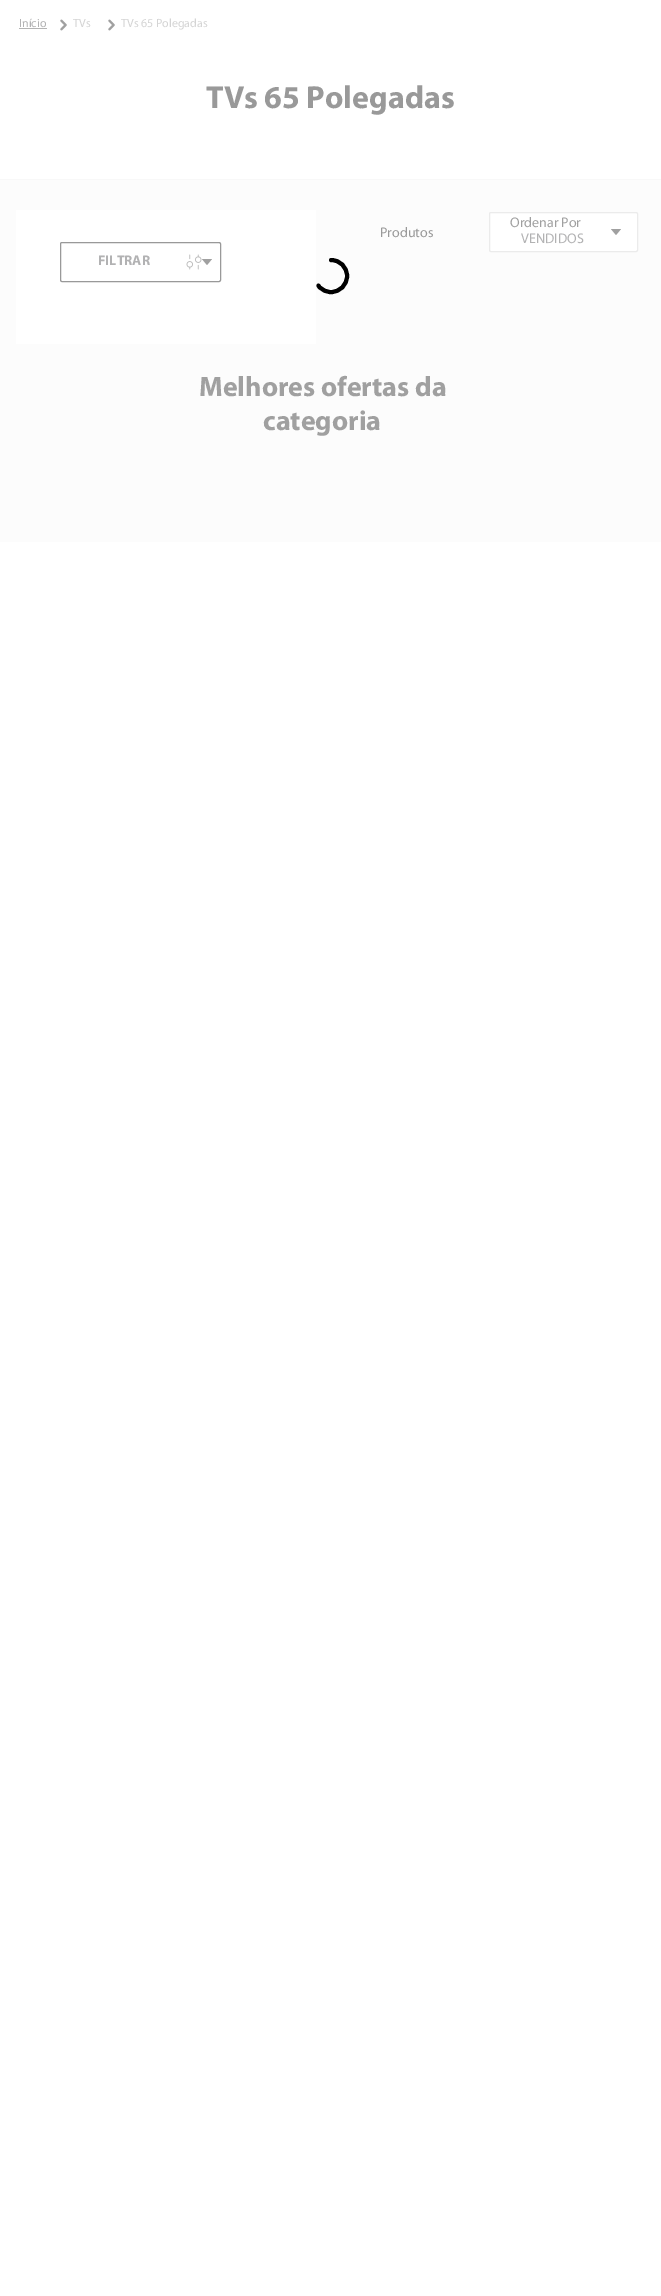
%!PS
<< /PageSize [661 2296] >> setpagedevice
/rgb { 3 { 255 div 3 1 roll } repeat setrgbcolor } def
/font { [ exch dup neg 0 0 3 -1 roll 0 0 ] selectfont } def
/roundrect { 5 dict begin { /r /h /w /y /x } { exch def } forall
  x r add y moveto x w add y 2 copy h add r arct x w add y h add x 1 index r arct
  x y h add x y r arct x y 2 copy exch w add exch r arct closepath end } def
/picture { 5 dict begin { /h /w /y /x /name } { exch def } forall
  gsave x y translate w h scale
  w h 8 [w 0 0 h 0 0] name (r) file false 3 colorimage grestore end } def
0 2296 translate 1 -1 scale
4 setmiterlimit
255 255 255 rgb
0 0 661 2296 rectfill
248 248 248 rgb
0 179 661 1 rectfill
180 180 180 rgb
19 28 28 1 rectfill
(img/1.rgb) 60 19 7 12 picture
(img/1.rgb) 108 19 7 12 picture
252 252 252 rgb
0 180 661 362 rectfill
255 255 255 rgb
489.5 212.5 148 39 1.5 roundrect gsave fill grestore
235 235 235 rgb
stroke
160 160 160 rgb
616 235 moveto 611 229 lineto 621 229 lineto closepath fill
255 255 255 rgb
16 210 300 134 rectfill
153 153 153 rgb
60.5 242.5 160 39 1.5 roundrect stroke
(img/2.rgb) 186 254 16 16 picture
160 160 160 rgb
207 265 moveto 202 259 lineto 212 259 lineto closepath fill
0 0 0 rgb
4 setlinewidth
1 setlinecap
[0 0 65.35 100.53] 0.4 setdash
331 260 moveto 340 260 347 267 347 276 curveto 347 285 340 292 331 292 curveto 322 292 315 285 315 276 curveto 315 267 322 260 331 260 curveto closepath stroke
/Myriad-Regular 12 font
178 178 179 rgb
19 27 moveto (Início) show
212 212 212 rgb
73 27 moveto (TVs) show
121 27 moveto (TVs 65 Polegadas) show
/Myriad-Bold 32 font
153 153 153 rgb
206 108 moveto (TVs 65 Polegadas) show
/Myriad-Regular 14 font
380 237 moveto (Produtos) show
160 160 160 rgb
510 227 moveto (Ordenar Por) show
178 178 179 rgb
521 243 moveto (VENDIDOS) show
/Myriad-Bold 14 font
98 265 moveto (FILTRAR) show
/Myriad-Bold 28 font
160 160 160 rgb
199 396 moveto (Melhores ofertas da) show
263 430 moveto (categoria) show
showpage
